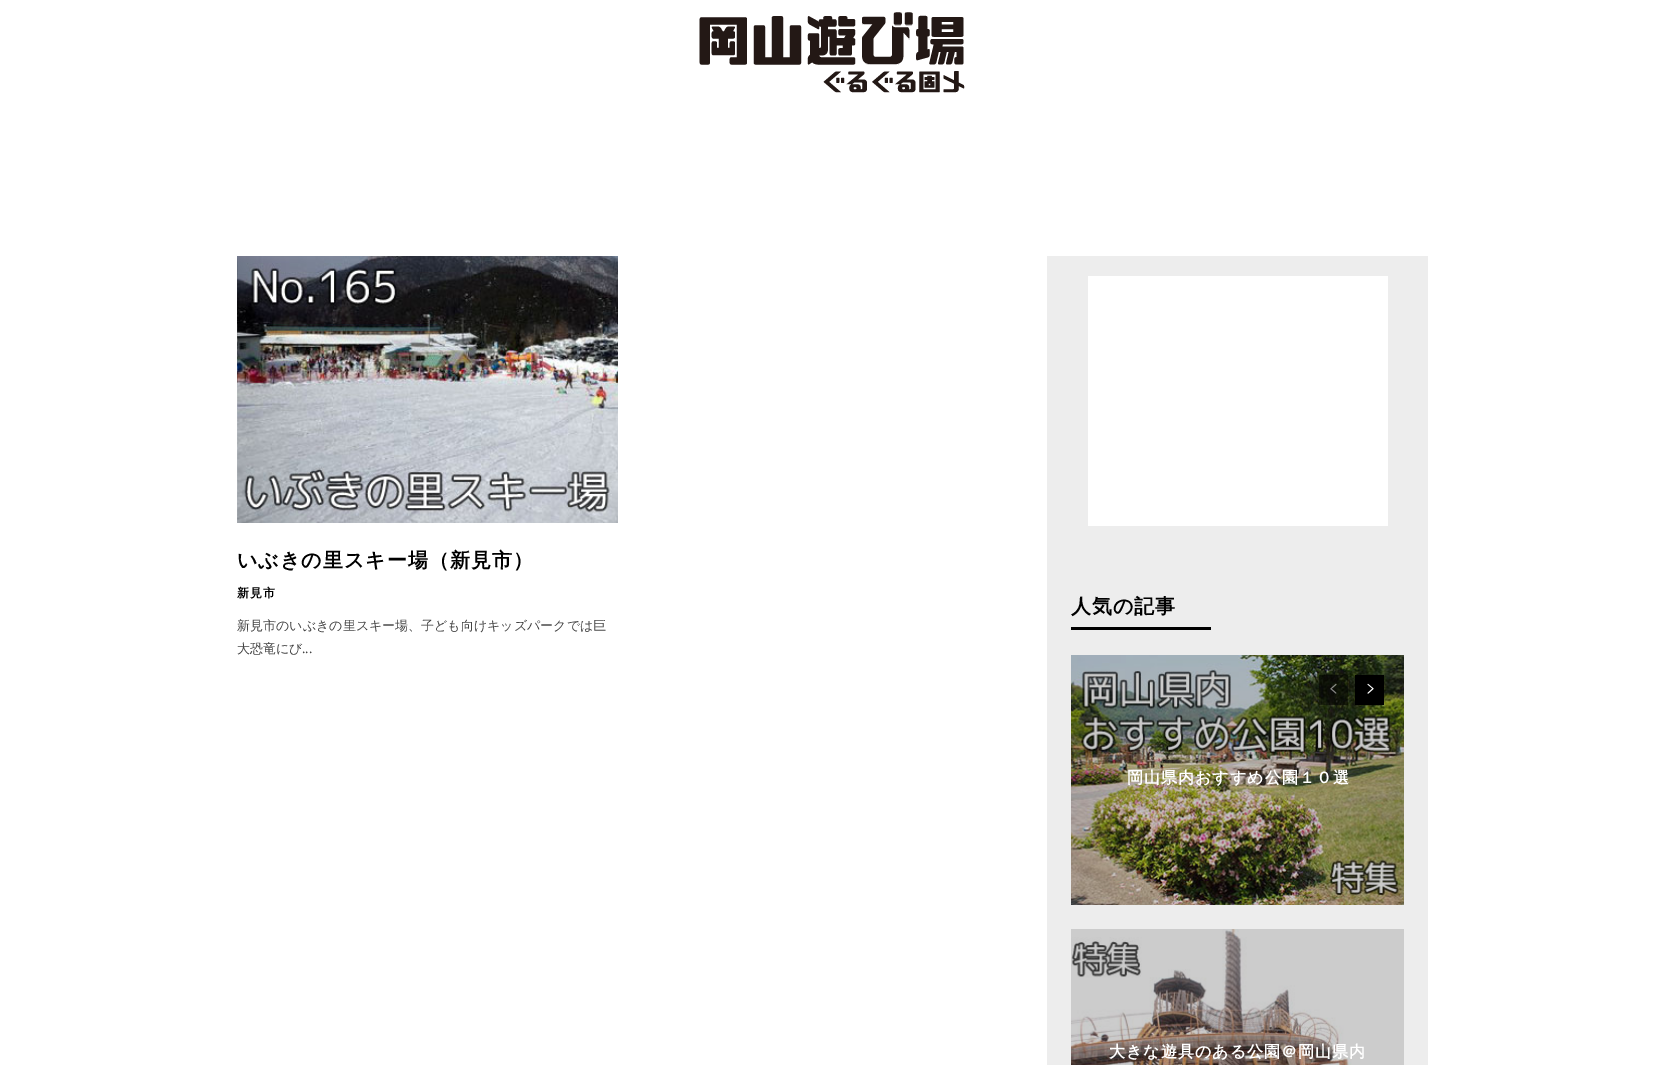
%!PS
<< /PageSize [1665 1065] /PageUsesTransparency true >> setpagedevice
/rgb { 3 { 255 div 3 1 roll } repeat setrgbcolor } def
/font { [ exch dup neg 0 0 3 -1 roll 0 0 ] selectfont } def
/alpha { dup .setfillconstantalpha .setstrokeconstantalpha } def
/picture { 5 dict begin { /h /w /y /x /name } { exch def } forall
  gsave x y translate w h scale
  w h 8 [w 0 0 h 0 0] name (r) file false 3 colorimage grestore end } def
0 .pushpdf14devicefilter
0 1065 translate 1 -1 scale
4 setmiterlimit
255 255 255 rgb
0 0 1665 1065 rectfill
(img/1.rgb) 699 12 266 81 picture
(img/2.rgb) 237 256 381 267 picture
[
  [1047 256 381 809 237 237 237]
  [1088 276 300 250 255 255 255]
  [1071 627 140 3 0 0 0]
] { aload pop rgb rectfill } forall
(img/5.rgb) 1071 655 333 250 picture
0.5 alpha
1319 675 29 30 rectfill
1 alpha
(img/3.rgb) 1330 683 7 11 picture
1355 675 29 30 rectfill
(img/4.rgb) 1367 683 7 11 picture
(img/6.rgb) 1071 929 333 136 picture
/WenQuanYiZenHei-Bold 20 font
237 567 moveto 1 0 (いぶきの里スキー場（新見市）) ashow
/WenQuanYiZenHei-Bold 12 font
237 597 moveto 1 0 (新見市) ashow
/WenQuanYiZenHei-Medium 13 font
68 68 68 rgb
237 630 moveto (新見市のいぶきの里スキー場、子ども向けキッズパークでは巨) show
237 653 moveto (大恐竜にび) show
/OpenSans-Regular 13 font
302 653 moveto (...) show
/WenQuanYiZenHei-Bold 20 font
0 0 0 rgb
1071 613 moveto 1 0 (人気の記事) ashow
/WenQuanYiZenHei-Bold 16 font
255 255 255 rgb
1127 783 moveto 1 0 (岡山県内おすすめ公園１０選) ashow
1109 1057 moveto 1 0 (大きな遊具のある公園＠岡山県内) ashow
.poppdf14devicefilter showpage
